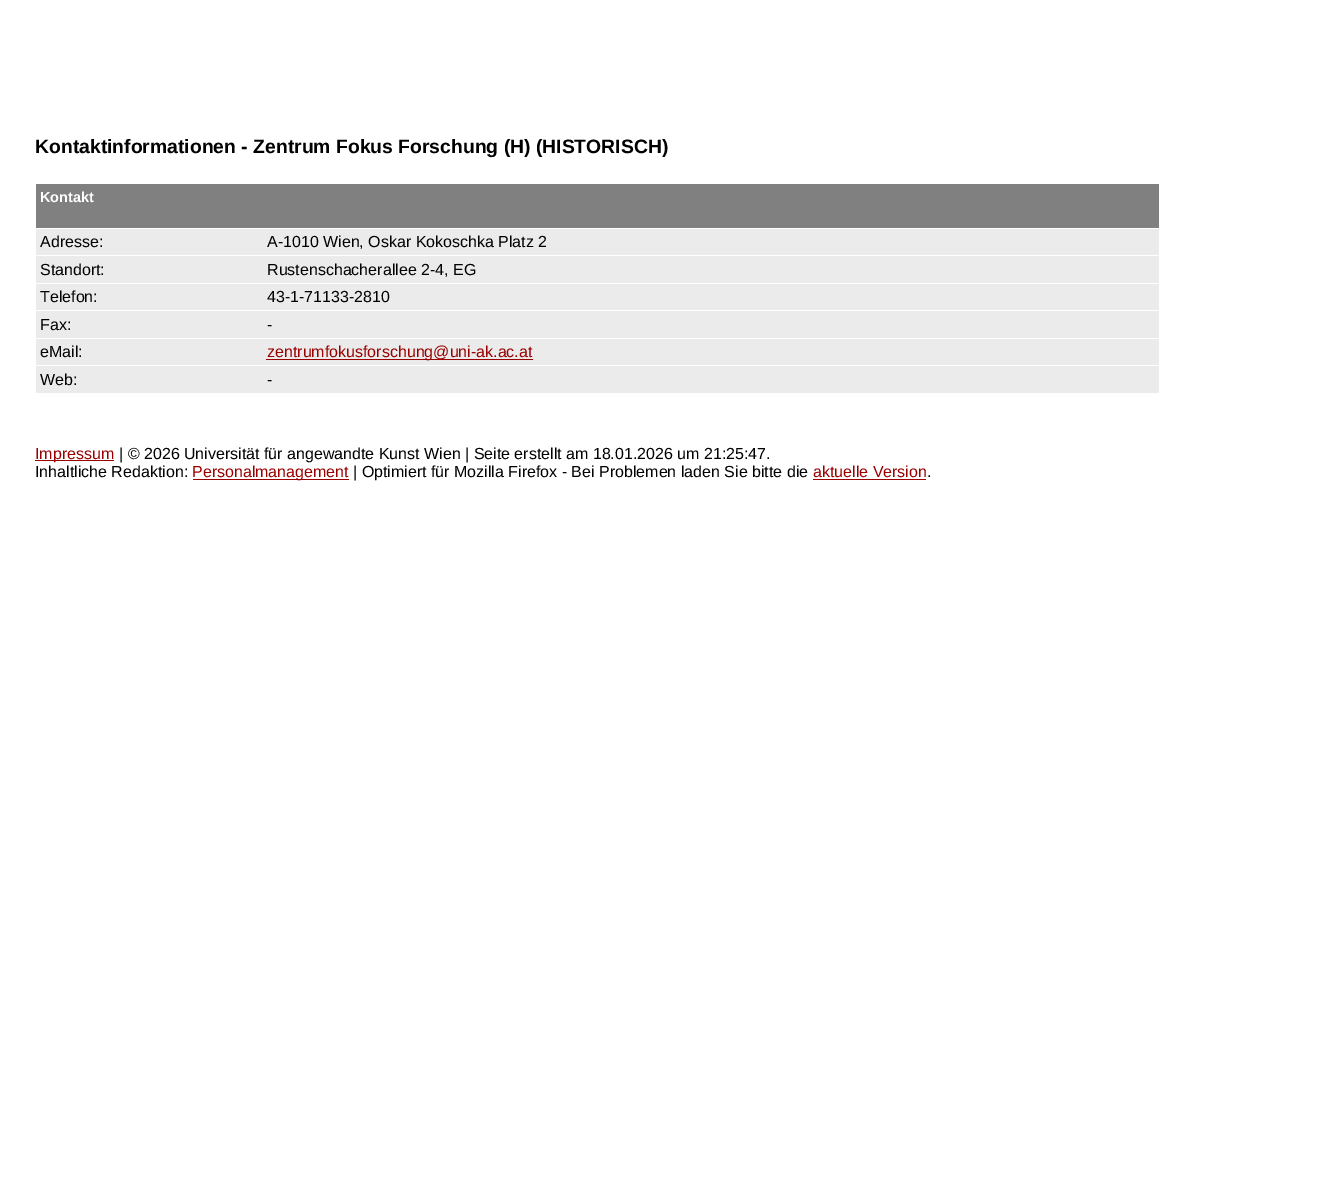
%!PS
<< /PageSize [1317 1178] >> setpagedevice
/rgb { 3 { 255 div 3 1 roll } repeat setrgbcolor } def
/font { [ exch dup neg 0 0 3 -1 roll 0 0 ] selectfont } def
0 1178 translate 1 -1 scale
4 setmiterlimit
255 255 255 rgb
0 0 1317 1178 rectfill
[
  [36 184 1123 44 128 128 128]
  [36 229 1123 26 235 235 235]
  [36 256 1123 27 235 235 235]
  [36 284 1123 26 235 235 235]
  [36 311 1123 27 235 235 235]
  [36 339 1123 26 235 235 235]
  [266 359 267 1 153 0 0]
  [36 366 1123 27 235 235 235]
  [35 460 79 1 153 0 0]
  [193 479 156 1 153 0 0]
  [813 479 113 1 153 0 0]
] { aload pop rgb rectfill } forall
/LiberationSans-Bold 19.35 font
0 0 0 rgb
35 153 moveto (Kontaktinformationen - Zentrum Fokus Forschung \(H\) \(HISTORISCH\)) show
/LiberationSans-Bold 14.5 font
255 255 255 rgb
40 202 moveto (Kontakt) show
/LiberationSans-Regular 16 font
0 0 0 rgb
[
  [(Adresse:) 40 247]
  [(A-1010 Wien, Oskar Kokoschka Platz 2) 267 247]
  [(Standort:) 40 275]
  [(Rustenschacherallee 2-4, EG) 267 275]
  [(Telefon:) 40 302]
  [(43-1-71133-2810) 267 302]
  [(Fax:) 40 330]
  [(-) 267 330]
  [(eMail:) 40 357]
] { aload pop moveto show } forall
153 0 0 rgb
267 357 moveto (zentrumfokusforschung@uni-ak.ac.at) show
0 0 0 rgb
40 385 moveto (Web:) show
267 385 moveto (-) show
153 0 0 rgb
35 459 moveto (Impressum) show
0 0 0 rgb
119 459 moveto (| © 2026 Universität für angewandte Kunst Wien | Seite erstellt am 18.01.2026 um 21:25:47.) show
35 477 moveto (Inhaltliche Redaktion:) show
153 0 0 rgb
192 477 moveto (Personalmanagement) show
0 0 0 rgb
353 477 moveto (| Optimiert für Mozilla Firefox - Bei Problemen laden Sie bitte die) show
153 0 0 rgb
813 477 moveto (aktuelle Version) show
0 0 0 rgb
927 477 moveto (.) show
showpage
